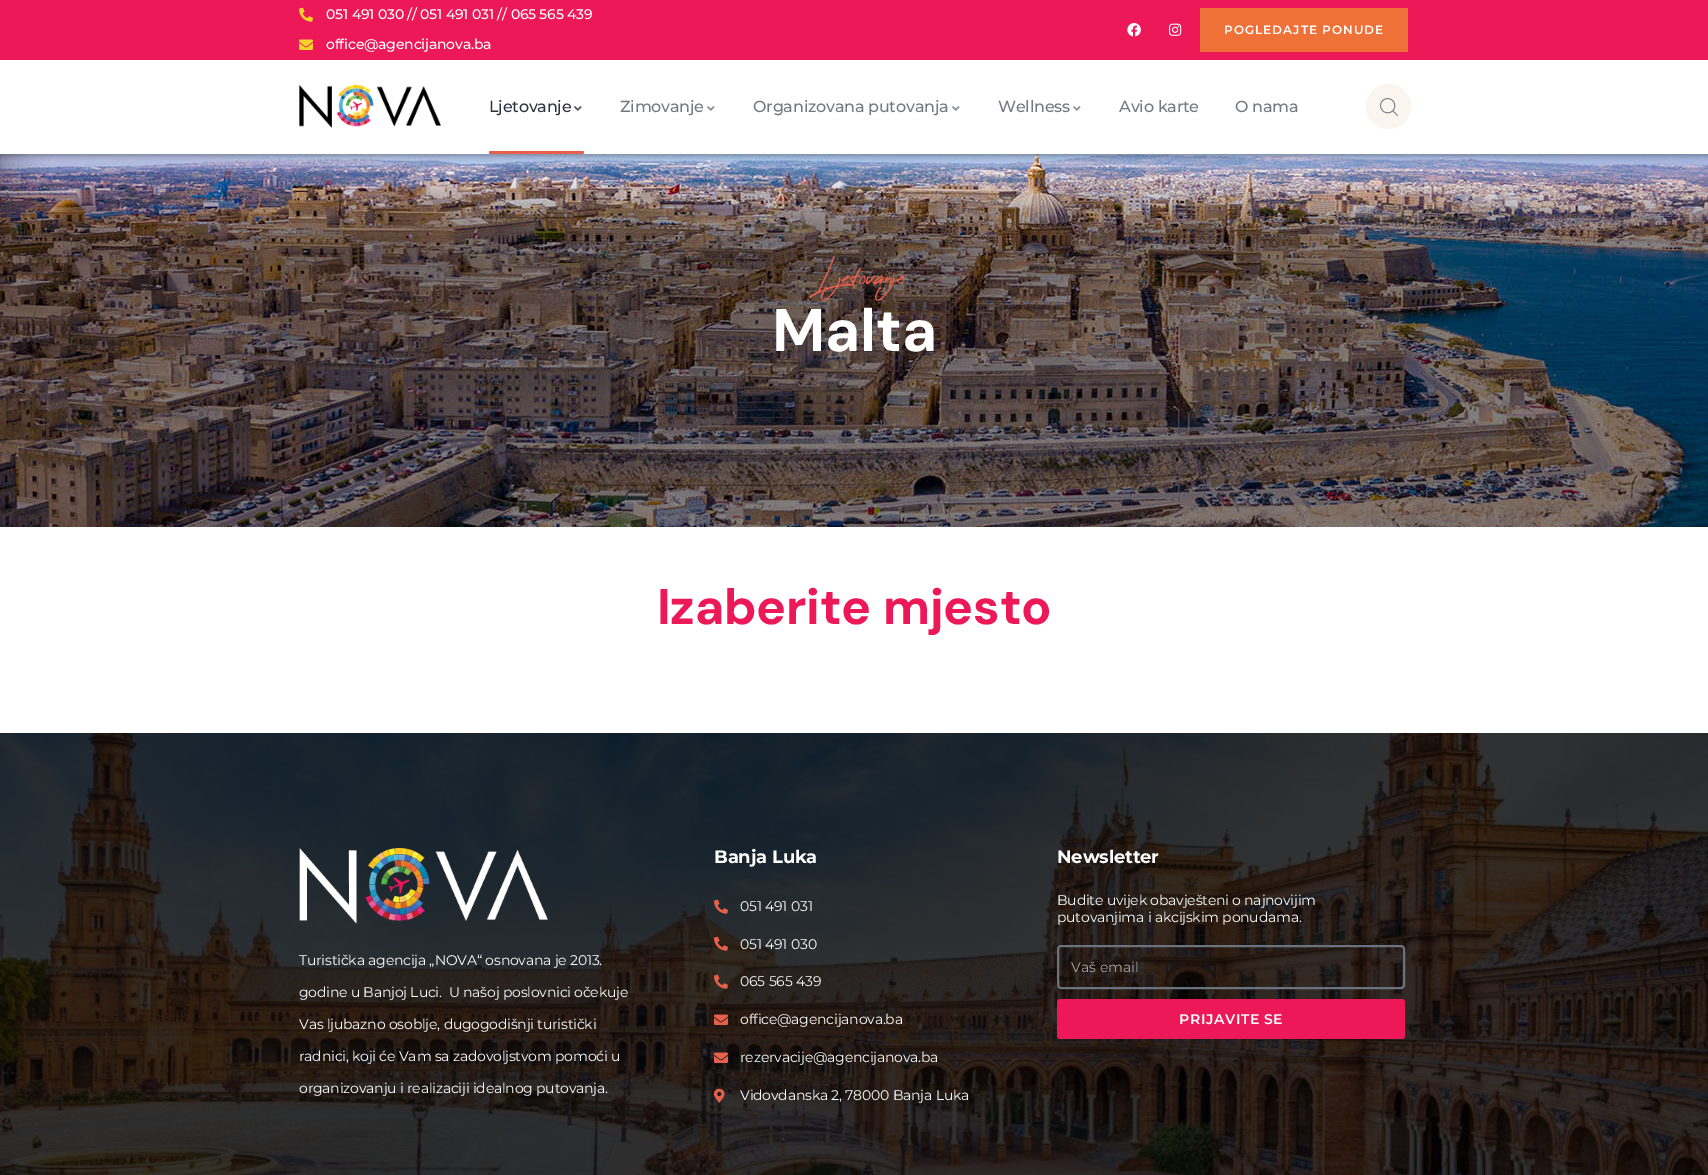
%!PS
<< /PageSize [1708 1175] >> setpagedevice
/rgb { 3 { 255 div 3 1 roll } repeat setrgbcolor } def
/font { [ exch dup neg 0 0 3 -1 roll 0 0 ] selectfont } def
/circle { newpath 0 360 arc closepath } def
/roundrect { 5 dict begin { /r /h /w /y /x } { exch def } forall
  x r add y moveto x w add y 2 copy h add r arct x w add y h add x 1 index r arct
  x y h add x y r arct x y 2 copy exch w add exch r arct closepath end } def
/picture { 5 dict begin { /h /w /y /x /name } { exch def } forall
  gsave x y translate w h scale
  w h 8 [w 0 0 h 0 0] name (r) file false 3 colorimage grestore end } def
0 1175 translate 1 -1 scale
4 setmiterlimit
255 255 255 rgb
0 0 1708 1175 rectfill
236 24 88 rgb
0 0 1708 60 rectfill
(img/1.rgb) 299 7 14 15 picture
(img/2.rgb) 299 39 14 11 picture
(img/3.rgb) 1127 23 14 14 picture
(img/4.rgb) 1168 23 14 13 picture
239 113 56 rgb
1200 8 208 44 rectfill
(img/5.rgb) 299 85 142 43 picture
(img/6.rgb) 574 106 8 5 picture
232 96 76 rgb
489 151 95 3 1.5 roundrect fill
(img/7.rgb) 707 106 8 5 picture
(img/7.rgb) 952 106 8 5 picture
(img/7.rgb) 1073 106 8 5 picture
250 245 238 rgb
1388.5 106.5 22.5 circle fill
(img/8.rgb) 1380 98 18 18 picture
(img/9.rgb) 0 154 1708 373 picture
(img/10.rgb) 0 733 1708 442 picture
(img/11.rgb) 299 848 249 76 picture
(img/12.rgb) 714 899 14 15 picture
(img/13.rgb) 714 936 14 15 picture
(img/14.rgb) 714 974 14 15 picture
(img/15.rgb) 714 1014 14 11 picture
(img/16.rgb) 714 1052 14 11 picture
(img/17.rgb) 714 1088 11 15 picture
105 114 125 rgb
2 setlinewidth
1058 946 346 42 3 roundrect stroke
236 24 88 rgb
1057 999 348 40 3 roundrect fill
/Montserrat-Medium 14 font
255 255 255 rgb
326 19 moveto -0.2 0 (051 491 030 // 051 491 031 // 065 565 439) ashow
326 49 moveto -0.2 0 (office@agencijanova.ba) ashow
/Montserrat-SemiBold 12 font
1224 34 moveto 1 0 (POGLEDAJTE PONUDE) ashow
/Montserrat-Medium 16 font
49 48 65 rgb
489 112 moveto -0.2 0 (Ljetovanje) ashow
117 119 131 rgb
620 112 moveto -0.2 0 (Zimovanje) ashow
753 112 moveto -0.2 0 (Organizovana putovanja) ashow
998 112 moveto -0.2 0 (Wellness) ashow
1119 112 moveto -0.2 0 (Avio karte) ashow
1235 112 moveto -0.2 0 (O nama) ashow
/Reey-Regular 20 font
232 96 76 rgb
818 285 moveto (Ljetovanje) show
/DMSans-Bold 60 font
255 255 255 rgb
772 351 moveto -0.2 0 (Malta) ashow
/DMSans-Bold 50 font
236 24 88 rgb
657 624 moveto -0.2 0 (Izaberite mjesto) ashow
/Montserrat-Regular 14 font
255 255 255 rgb
299 965 moveto -0.2 0 (Turistička agencija „NOVA“ osnovana je 2013.) ashow
299 997 moveto -0.2 0 (godine u Banjoj Luci.  U našoj poslovnici očekuje) ashow
299 1029 moveto -0.2 0 (Vas ljubazno osoblje, dugogodišnji turistički) ashow
299 1061 moveto -0.2 0 (radnici, koji će Vam sa zadovoljstvom pomoći u) ashow
299 1093 moveto -0.2 0 (organizovanju i realizaciji idealnog putovanja.) ashow
/Montserrat-Bold 18 font
714 863 moveto -0.2 0 (Banja Luka) ashow
/Montserrat-Regular 14 font
740 911 moveto -0.2 0 (051 491 031) ashow
740 949 moveto -0.2 0 (051 491 030) ashow
740 986 moveto -0.2 0 (065 565 439) ashow
740 1024 moveto -0.2 0 (office@agencijanova.ba) ashow
740 1062 moveto -0.2 0 (rezervacije@agencijanova.ba) ashow
740 1100 moveto -0.2 0 (Vidovdanska 2, 78000 Banja Luka) ashow
/Montserrat-Bold 18 font
1057 863 moveto -0.2 0 (Newsletter) ashow
/Montserrat-Regular 14 font
1057 905 moveto -0.2 0 (Budite uvijek obavješteni o najnovijim) ashow
1057 922 moveto -0.2 0 (putovanjima i akcijskim ponudama.) ashow
166 163 161 rgb
1071 972 moveto (Vaš email) show
/Montserrat-SemiBold 14 font
255 255 255 rgb
1179 1024 moveto 0.6 0 (PRIJAVITE SE) ashow
showpage
